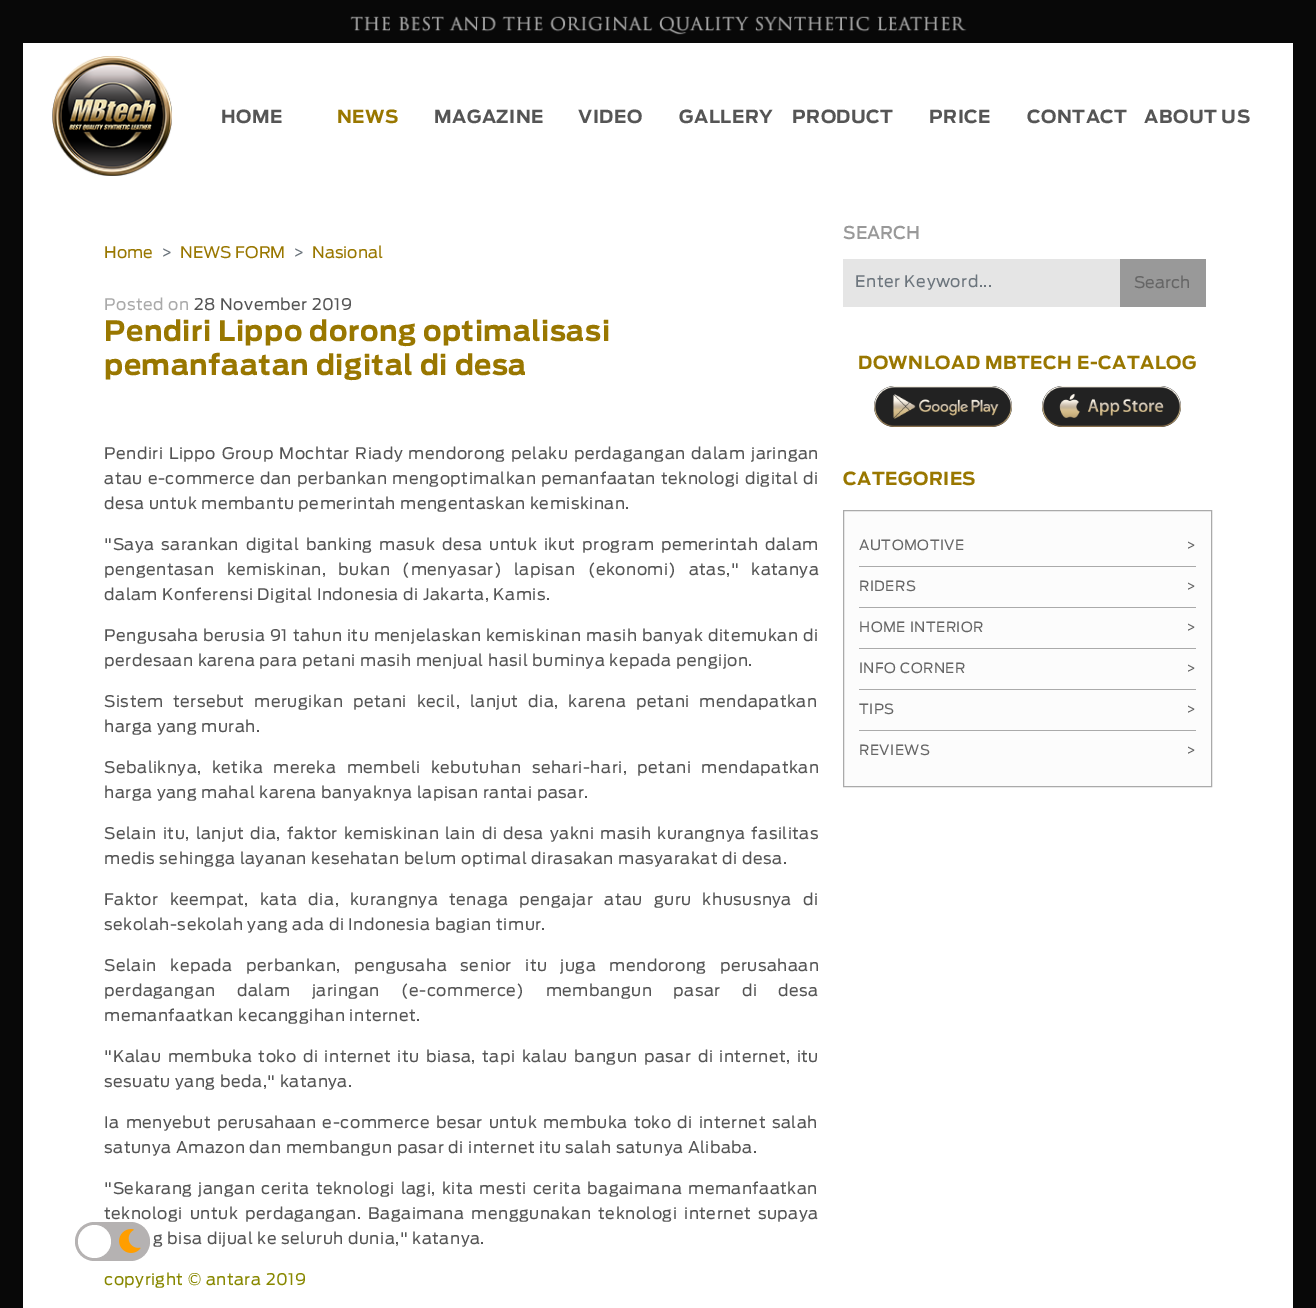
%!PS
<< /PageSize [1316 1308] >> setpagedevice
/rgb { 3 { 255 div 3 1 roll } repeat setrgbcolor } def
/font { [ exch dup neg 0 0 3 -1 roll 0 0 ] selectfont } def
/circle { newpath 0 360 arc closepath } def
/roundrect { 5 dict begin { /r /h /w /y /x } { exch def } forall
  x r add y moveto x w add y 2 copy h add r arct x w add y h add x 1 index r arct
  x y h add x y r arct x y 2 copy exch w add exch r arct closepath end } def
/picture { 5 dict begin { /h /w /y /x /name } { exch def } forall
  gsave x y translate w h scale
  w h 8 [w 0 0 h 0 0] name (r) file false 3 colorimage grestore end } def
0 1308 translate 1 -1 scale
4 setmiterlimit
8 8 8 rgb
0 0 1316 1308 rectfill
(img/1.rgb) 350 16 617 19 picture
255 255 255 rgb
23 43 1270 1265 rectfill
(img/2.rgb) 52 56 120 120 picture
229 229 229 rgb
843 259 277 48 rectfill
153 153 153 rgb
1120 259 86 48 rectfill
34 34 34 rgb
874 386 138 41 20.5 roundrect fill
(img/3.rgb) 874 386 138 41 picture
1042 386 139 41 20.5 roundrect fill
(img/4.rgb) 1042 386 139 41 picture
252 252 252 rgb
843.5 510.5 moveto 1211.5 510.5 lineto 1211.5 786.5 lineto 843.5 786.5 lineto closepath gsave fill grestore
170 170 170 rgb
stroke
[
  [859 566 337 1 170 170 170]
  [859 607 337 1 170 170 170]
  [859 648 337 1 170 170 170]
  [859 689 337 1 170 170 170]
  [859 730 337 1 170 170 170]
] { aload pop rgb rectfill } forall
181 178 178 rgb
75 1222 75 39 19.5 roundrect fill
255 255 255 rgb
94.5 1241.5 16.5 circle fill
(img/5.rgb) 119 1229 22 24 picture
/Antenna-Bold 18 font
85 85 85 rgb
221 123 moveto 0.5 0 (HOME) ashow
153 119 0 rgb
337 123 moveto 0.5 0 (NEWS) ashow
85 85 85 rgb
434 123 moveto 0.5 0 (MAGAZINE) ashow
578 123 moveto 0.5 0 (VIDEO) ashow
679 123 moveto 0.5 0 (GALLERY) ashow
792 123 moveto 0.5 0 (PRODUCT) ashow
929 123 moveto 0.5 0 (PRICE) ashow
1027 123 moveto 0.5 0 (CONTACT) ashow
1144 123 moveto 0.5 0 (ABOUT US) ashow
/Antenna-Regular 16 font
153 119 0 rgb
104 258 moveto (Home) show
108 117 125 rgb
161 258 moveto (>) show
153 119 0 rgb
180 258 moveto (NEWS FORM) show
108 117 125 rgb
293 258 moveto (>) show
153 119 0 rgb
312 258 moveto (Nasional) show
170 170 170 rgb
104 310 moveto 0.5 0 (Posted on) ashow
85 85 85 rgb
194 310 moveto 0.5 0 (28 November 2019) ashow
/Antenna-Bold 28 font
153 119 0 rgb
104 341 moveto 0.5 0 (Pendiri Lippo dorong optimalisasi) ashow
104 375 moveto 0.5 0 (pemanfaatan digital di desa) ashow
/Antenna-Regular 16 font
85 85 85 rgb
104 459 moveto 1.5 0 32 0.5 0 (Pendiri Lippo Group Mochtar Riady mendorong pelaku perdagangan dalam jaringan) awidthshow
104 484 moveto 0.75 0 32 0.5 0 (atau e-commerce dan perbankan mengoptimalkan pemanfaatan teknologi digital di) awidthshow
104 509 moveto 0.5 0 (desa untuk membantu pemerintah mengentaskan kemiskinan.) ashow
104 550 moveto 2.4 0 32 0.5 0 ("Saya sarankan digital banking masuk desa untuk ikut program pemerintah dalam) awidthshow
104 575 moveto 7.75 0 32 0.5 0 (pengentasan kemiskinan, bukan \(menyasar\) lapisan \(ekonomi\) atas," katanya) awidthshow
104 600 moveto 0.5 0 (dalam Konferensi Digital Indonesia di Jakarta, Kamis.) ashow
104 641 moveto 0.5 0 32 0.5 0 (Pengusaha berusia 91 tahun itu menjelaskan kemiskinan masih banyak ditemukan di) awidthshow
104 666 moveto 0.5 0 (perdesaan karena para petani masih menjual hasil buminya kepada pengijon.) ashow
104 707 moveto 5.5 0 32 0.5 0 (Sistem tersebut merugikan petani kecil, lanjut dia, karena petani mendapatkan) awidthshow
104 732 moveto 0.5 0 (harga yang murah.) ashow
104 773 moveto 6 0 32 0.5 0 (Sebaliknya, ketika mereka membeli kebutuhan sehari-hari, petani mendapatkan) awidthshow
104 798 moveto 0.5 0 (harga yang mahal karena banyaknya lapisan rantai pasar.) ashow
104 839 moveto 1.7 0 32 0.5 0 (Selain itu, lanjut dia, faktor kemiskinan lain di desa yakni masih kurangnya fasilitas) awidthshow
104 864 moveto 0.5 0 (medis sehingga layanan kesehatan belum optimal dirasakan masyarakat di desa.) ashow
104 905 moveto 6.75 0 32 0.5 0 (Faktor keempat, kata dia, kurangnya tenaga pengajar atau guru khususnya di) awidthshow
104 930 moveto 0.5 0 (sekolah-sekolah yang ada di Indonesia bagian timur.) ashow
104 971 moveto 9 0 32 0.5 0 (Selain kepada perbankan, pengusaha senior itu juga mendorong perusahaan) awidthshow
104 996 moveto 16.75 0 32 0.5 0 (perdagangan dalam jaringan \(e-commerce\) membangun pasar di desa) awidthshow
104 1021 moveto 0.5 0 (memanfaatkan kecanggihan internet.) ashow
104 1062 moveto 2 0 32 0.5 0 ("Kalau membuka toko di internet itu biasa, tapi kalau bangun pasar di internet, itu) awidthshow
104 1087 moveto 0.5 0 (sesuatu yang beda," katanya.) ashow
104 1128 moveto 1.75 0 32 0.5 0 (Ia menyebut perusahaan e-commerce besar untuk membuka toko di internet salah) awidthshow
104 1153 moveto 0.5 0 (satunya Amazon dan membangun pasar di internet itu salah satunya Alibaba.) ashow
104 1194 moveto 1.75 0 32 0.5 0 ("Sekarang jangan cerita teknologi lagi, kita mesti cerita bagaimana memanfaatkan) awidthshow
104 1219 moveto 2.75 0 32 0.5 0 (teknologi untuk perdagangan. Bagaimana menggunakan teknologi internet supaya) awidthshow
153 1244 moveto 0.5 0 (g bisa dijual ke seluruh dunia," katanya.) ashow
136 136 0 rgb
104 1285 moveto 0.5 0 (copyright © antara 2019) ashow
/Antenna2-Bold 17 font
153 153 153 rgb
843 239 moveto 0.5 0 (SEARCH) ashow
/Antenna-Regular 16 font
108 117 125 rgb
855 287 moveto 0.5 0 (Enter Keyword...) ashow
102 102 102 rgb
1134 288 moveto (Search) show
/Antenna-Bold 18 font
153 119 0 rgb
858 369 moveto 0.5 0 (DOWNLOAD MBTECH E-CATALOG) ashow
843 485 moveto 0.5 0 (CATEGORIES) ashow
/Antenna-Regular 14 font
102 102 102 rgb
859 550 moveto 0.5 0 (AUTOMOTIVE) ashow
1186 550 moveto 0.5 0 (>) ashow
859 591 moveto 0.5 0 (RIDERS) ashow
1186 591 moveto 0.5 0 (>) ashow
859 632 moveto 0.5 0 (HOME INTERIOR) ashow
1186 632 moveto 0.5 0 (>) ashow
859 673 moveto 0.5 0 (INFO CORNER) ashow
1186 673 moveto 0.5 0 (>) ashow
859 714 moveto 0.5 0 (TIPS) ashow
1186 714 moveto 0.5 0 (>) ashow
859 755 moveto 0.5 0 (REVIEWS) ashow
1186 755 moveto 0.5 0 (>) ashow
showpage
